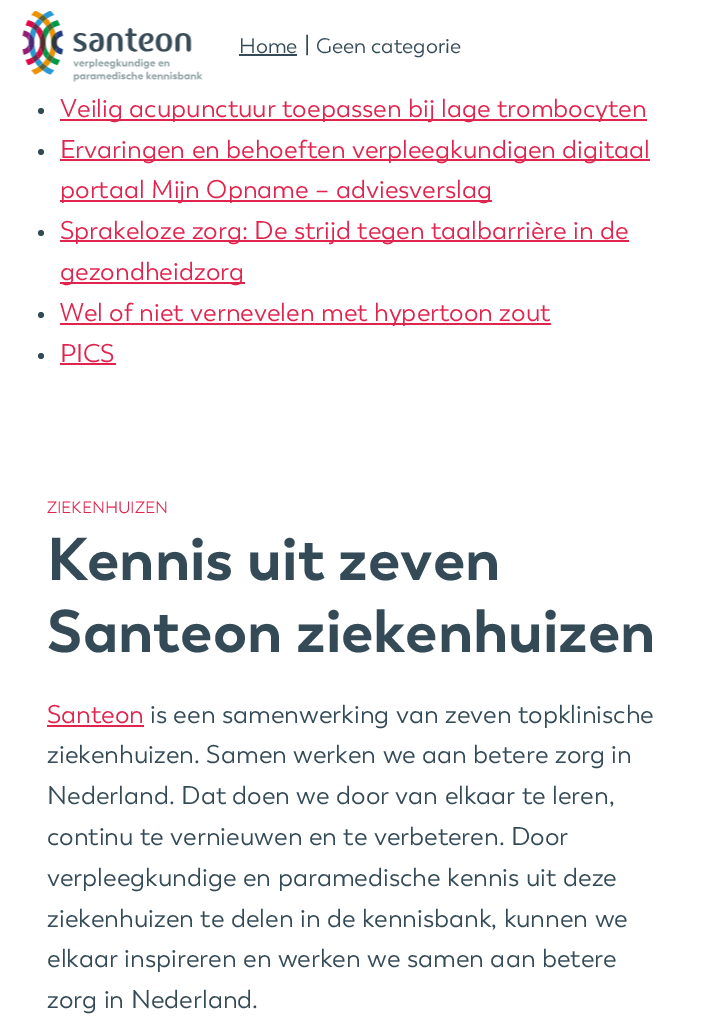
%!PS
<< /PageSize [713 1029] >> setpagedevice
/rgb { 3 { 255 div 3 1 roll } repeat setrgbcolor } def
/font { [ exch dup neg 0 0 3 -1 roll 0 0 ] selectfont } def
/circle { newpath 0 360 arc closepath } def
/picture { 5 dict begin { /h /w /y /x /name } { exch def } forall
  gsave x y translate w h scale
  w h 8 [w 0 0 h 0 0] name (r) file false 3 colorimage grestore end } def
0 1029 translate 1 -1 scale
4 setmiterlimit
255 255 255 rgb
0 0 713 1029 rectfill
(img/1.rgb) 22 11 181 71 picture
52 75 87 rgb
239 54 58 2 rectfill
41 111 3 circle fill
224 36 78 rgb
60 119 587 2 rectfill
52 75 87 rgb
41 152 3 circle fill
224 36 78 rgb
60 159 590 2 rectfill
60 200 432 2 rectfill
52 75 87 rgb
41 233 3 circle fill
224 36 78 rgb
60 240 569 2 rectfill
60 282 185 2 rectfill
52 75 87 rgb
41 315 3 circle fill
224 36 78 rgb
60 323 491 2 rectfill
52 75 87 rgb
41 356 3 circle fill
224 36 78 rgb
60 363 56 2 rectfill
47 725 97 2 rectfill
/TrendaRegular-Regular 21 font
52 75 87 rgb
239 53 moveto (Home) show
/TrendaRegular-Regular 25.5 font
304 53 moveto (|) show
/TrendaRegular-Regular 21 font
316 53 moveto (Geen categorie) show
/TrendaRegular-Regular 25.5 font
224 36 78 rgb
[
  [(Veilig acupunctuur toepassen bij lage trombocyten) 60 117]
  [(Ervaringen en behoeften verpleegkundigen digitaal) 60 158]
  [(portaal Mijn Opname – adviesverslag) 60 198]
  [(Sprakeloze zorg: De strijd tegen taalbarrière in de) 60 239]
  [(gezondheidzorg) 60 280]
  [(Wel of niet vernevelen met hypertoon zout) 60 321]
  [(PICS) 60 362]
] { aload pop moveto show } forall
/TrendaRegular-Regular 16.5 font
47 513 moveto (ZIEKENHUIZEN) show
/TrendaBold-Regular 60 font
52 75 87 rgb
47 580 moveto (Kennis uit zeven) show
47 652 moveto (Santeon ziekenhuizen) show
/TrendaRegular-Regular 25.5 font
224 36 78 rgb
47 723 moveto (Santeon) show
52 75 87 rgb
[
  [(is een samenwerking van zeven topklinische) 150 723]
  [(ziekenhuizen. Samen werken we aan betere zorg in) 47 763]
  [(Nederland. Dat doen we door van elkaar te leren,) 47 804]
  [(continu te vernieuwen en te verbeteren. Door) 47 845]
  [(verpleegkundige en paramedische kennis uit deze) 47 886]
  [(ziekenhuizen te delen in de kennisbank, kunnen we) 47 927]
  [(elkaar inspireren en werken we samen aan betere) 47 967]
  [(zorg in Nederland.) 47 1008]
] { aload pop moveto show } forall
showpage
